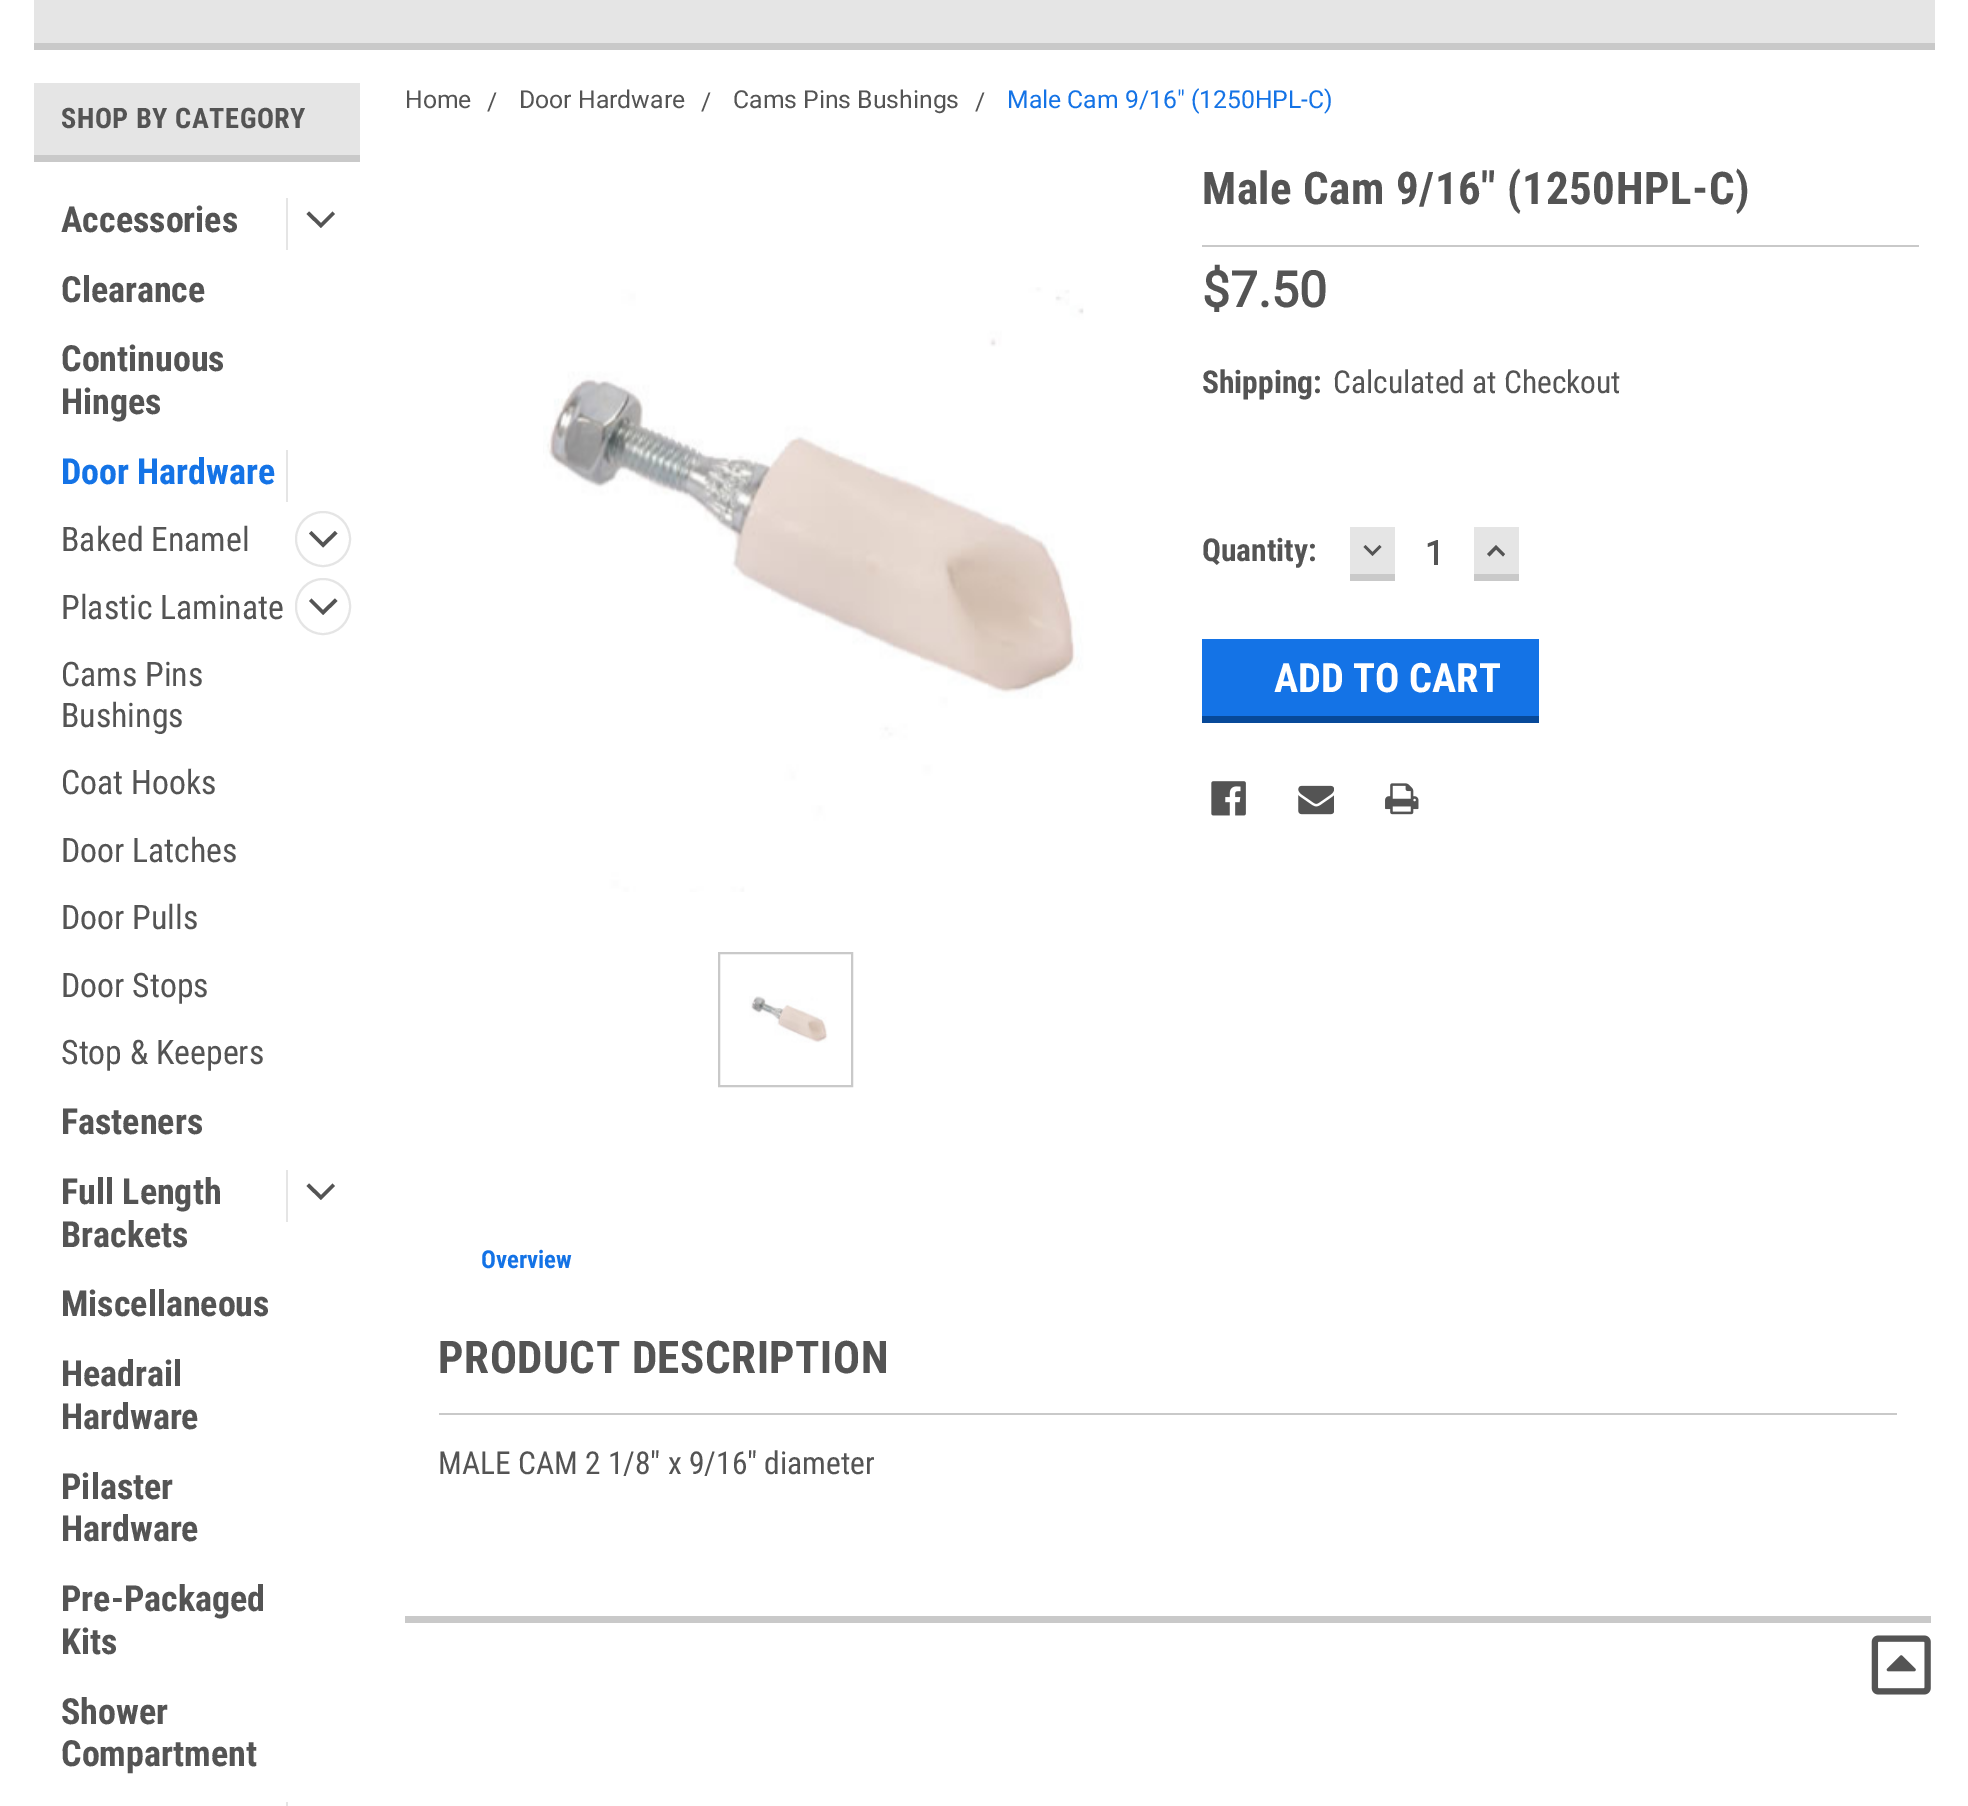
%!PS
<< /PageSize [1968 1806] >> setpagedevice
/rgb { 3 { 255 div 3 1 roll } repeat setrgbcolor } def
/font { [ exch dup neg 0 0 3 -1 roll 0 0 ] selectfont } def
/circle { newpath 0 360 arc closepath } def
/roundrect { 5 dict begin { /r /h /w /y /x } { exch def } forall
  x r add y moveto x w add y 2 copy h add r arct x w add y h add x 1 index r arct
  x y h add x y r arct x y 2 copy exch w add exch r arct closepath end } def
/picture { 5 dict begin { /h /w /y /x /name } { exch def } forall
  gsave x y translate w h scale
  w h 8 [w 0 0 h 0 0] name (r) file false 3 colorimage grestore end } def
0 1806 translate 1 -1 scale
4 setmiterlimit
255 255 255 rgb
0 0 1968 1806 rectfill
[
  [34 0 1901 43 229 229 229]
  [34 43 1901 7 201 201 201]
  [34 83 326 72 229 229 229]
  [34 155 326 7 201 201 201]
  [286 198 2 52 229 229 229]
] { aload pop rgb rectfill } forall
84 84 84 rgb
335 214 moveto 321 228 lineto 306.5 214 lineto 309 211.5 lineto 321 223 lineto 332.5 211.5 lineto closepath fill
229 229 229 rgb
286 450 2 52 rectfill
2 setlinewidth
323 539 27 circle stroke
84 84 84 rgb
337.5 533.5 moveto 323 547.5 lineto 309 533.5 lineto 311.5 531 lineto 323 542.5 lineto 335 531 lineto closepath fill
229 229 229 rgb
296 579 54 55 27 roundrect stroke
84 84 84 rgb
337.5 601 moveto 323 615 lineto 309 601 lineto 311.5 598.5 lineto 323 610 lineto 335 598.5 lineto closepath fill
229 229 229 rgb
286 1170 2 52 rectfill
84 84 84 rgb
335 1186 moveto 321 1200 lineto 306.5 1186 lineto 309 1183.5 lineto 321 1195 lineto 332.5 1183.5 lineto closepath fill
229 229 229 rgb
286 1802 2 4 rectfill
(img/1.rgb) 543 287 541 605 picture
201 201 201 rgb
719 953 133 133 rectstroke
(img/2.rgb) 749 996 79 47 picture
[
  [1202 245 717 2 201 201 201]
  [1350 527 45 47 229 229 229]
  [1350 574 45 7 201 201 201]
] { aload pop rgb rectfill } forall
84 84 84 rgb
1365.5 545 moveto 1372.5 552 lineto 1379.5 545 lineto 1381.5 547 lineto 1372.5 556 lineto 1363.5 547 lineto closepath fill
229 229 229 rgb
1474 527 45 47 rectfill
201 201 201 rgb
1474 574 45 7 rectfill
84 84 84 rgb
1489.5 556.5 moveto 1496 549.5 lineto 1503 556.5 lineto 1505 554 lineto 1496 545 lineto 1487 554 lineto closepath fill
20 115 230 rgb
1202 639 337 77 rectfill
7 73 153 rgb
1202 716 337 7 rectfill
(img/3.rgb) 1211 781 35 35 picture
(img/4.rgb) 1298 785 36 30 picture
(img/5.rgb) 1385 783 34 32 picture
201 201 201 rgb
405 1616 1526 7 rectfill
439 1413 1458 2 rectfill
(img/6.rgb) 1871 1635 60 60 picture
/RobotoCondensed-Bold 28.25 font
84 84 84 rgb
61 128 moveto 0.55 0 (SHOP BY CATEGORY) ashow
/RobotoCondensed-Bold 36 font
[
  [(Accessories) 61 232]
  [(Clearance) 61 302]
  [(Continuous) 61 371]
  [(Hinges) 61 414]
] { aload pop moveto show } forall
20 115 230 rgb
61 484 moveto (Door Hardware) show
/RobotoCondensed-Regular 33.75 font
84 84 84 rgb
[
  [(Baked Enamel) 61 551]
  [(Plastic Laminate) 61 619]
  [(Cams Pins) 61 686]
  [(Bushings) 61 727]
  [(Coat Hooks) 61 794]
  [(Door Latches) 61 862]
  [(Door Pulls) 61 929]
  [(Door Stops) 61 997]
  [(Stop & Keepers) 61 1064]
] { aload pop moveto show } forall
/RobotoCondensed-Bold 36 font
[
  [(Fasteners) 61 1134]
  [(Full Length) 61 1204]
  [(Brackets) 61 1247]
  [(Miscellaneous) 61 1316]
  [(Headrail) 61 1386]
  [(Hardware) 61 1429]
  [(Pilaster) 61 1499]
  [(Hardware) 61 1541]
  [(Pre-Packaged) 61 1611]
  [(Kits) 61 1654]
  [(Shower) 61 1724]
  [(Compartment) 61 1766]
] { aload pop moveto show } forall
/Roboto-Regular 24.75 font
[
  [(Home) 405 108]
  [(/) 487 110]
  [(Door Hardware) 519 108]
  [(/) 701 110]
  [(Cams Pins Bushings) 733 108]
  [(/) 975 110]
] { aload pop moveto show } forall
20 115 230 rgb
1007 108 moveto (Male Cam 9/16" \(1250HPL-C\)) show
/RobotoCondensed-Bold 45 font
84 84 84 rgb
1202 204 moveto 0.55 0 (Male Cam 9/16" \(1250HPL-C\)) ashow
/Roboto-Bold 49.5 font
1202 307 moveto ($7.50) show
/RobotoCondensed-Bold 31.5 font
1202 393 moveto (Shipping:) show
/RobotoCondensed-Regular 31.5 font
1333 393 moveto (Calculated at Checkout) show
/RobotoCondensed-Bold 31.5 font
1202 561 moveto (Quantity:) show
/Roboto-Bold 33.75 font
1425 565 moveto (1) show
/RobotoCondensed-Bold 40.5 font
255 255 255 rgb
1274 692 moveto (ADD TO CART) show
/RobotoCondensed-Bold 24.75 font
20 115 230 rgb
481 1268 moveto (Overview) show
/RobotoCondensed-Bold 45 font
84 84 84 rgb
438 1373 moveto 0.55 0 (PRODUCT DESCRIPTION) ashow
/RobotoCondensed-Regular 31.5 font
438 1474 moveto (MALE CAM 2 1/8" x 9/16" diameter) show
showpage
